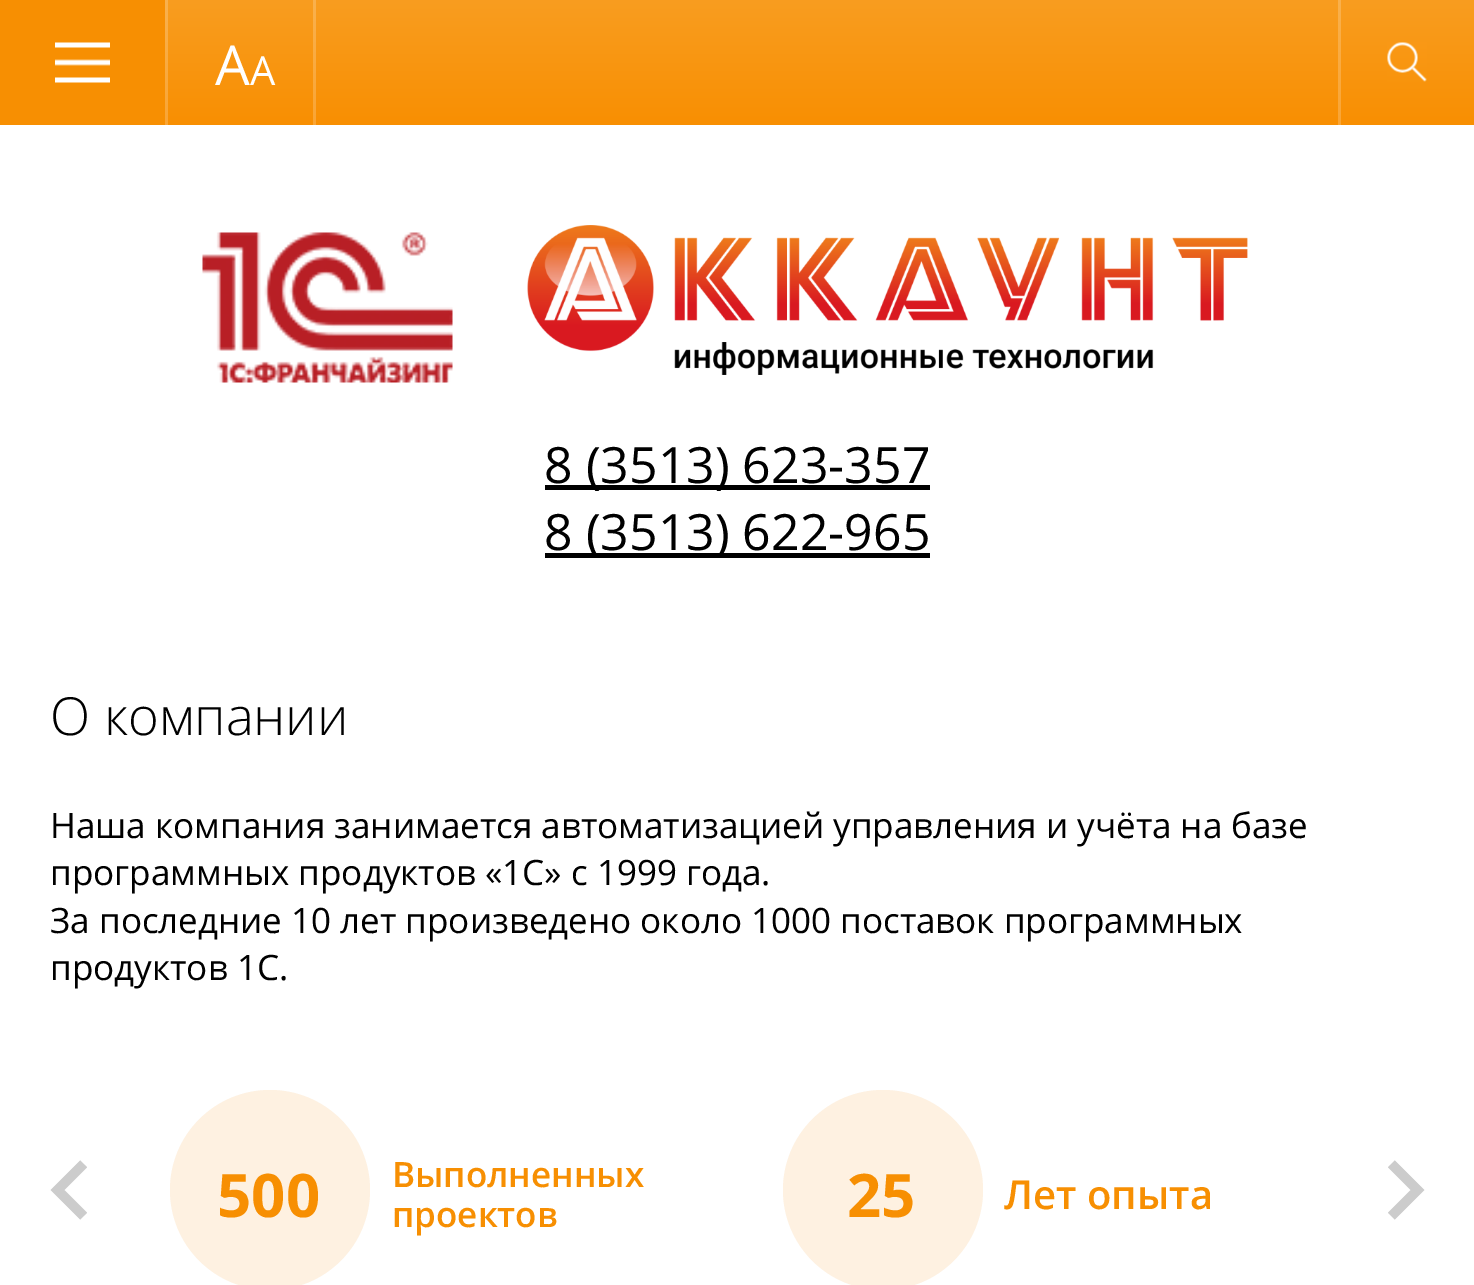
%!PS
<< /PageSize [1474 1285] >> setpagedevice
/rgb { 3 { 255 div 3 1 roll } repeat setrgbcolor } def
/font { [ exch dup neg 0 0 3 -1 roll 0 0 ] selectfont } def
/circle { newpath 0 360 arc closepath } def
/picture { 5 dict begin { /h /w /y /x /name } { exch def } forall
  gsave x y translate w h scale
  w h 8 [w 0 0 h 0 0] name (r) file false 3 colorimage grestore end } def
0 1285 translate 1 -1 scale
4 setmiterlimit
255 255 255 rgb
0 0 1474 1285 rectfill
gsave 168 0 moveto 1474 0 lineto 1474 125 lineto 168 125 lineto closepath clip newpath
<< /ShadingType 2 /ColorSpace /DeviceRGB /Coords [738 0 738 125] /Extend [true true] /Function << /FunctionType 2 /Domain [0 1] /C0 [0.976 0.616 0.125] /C1 [0.973 0.561 0.008] /N 1 >> >> shfill grestore
gsave 313 0 moveto 316 0 lineto 316 125 lineto 313 125 lineto closepath clip newpath
<< /ShadingType 2 /ColorSpace /DeviceRGB /Coords [738 0 738 125] /Extend [true true] /Function << /FunctionType 2 /Domain [0 1] /C0 [0.98 0.694 0.302] /C1 [0.976 0.647 0.208] /N 1 >> >> shfill grestore
gsave 165 0 moveto 168 0 lineto 168 125 lineto 165 125 lineto closepath clip newpath
<< /ShadingType 2 /ColorSpace /DeviceRGB /Coords [738 0 738 125] /Extend [true true] /Function << /FunctionType 2 /Domain [0 1] /C0 [0.98 0.694 0.302] /C1 [0.976 0.647 0.208] /N 1 >> >> shfill grestore
gsave 1338 0 moveto 1341 0 lineto 1341 125 lineto 1338 125 lineto closepath clip newpath
<< /ShadingType 2 /ColorSpace /DeviceRGB /Coords [738 0 738 125] /Extend [true true] /Function << /FunctionType 2 /Domain [0 1] /C0 [0.98 0.694 0.302] /C1 [0.976 0.647 0.208] /N 1 >> >> shfill grestore
(img/1.rgb) 1387 42 40 40 picture
247 143 2 rgb
0 0 165 125 rectfill
(img/2.rgb) 55 42 55 41 picture
(img/3.rgb) 202 232 251 151 picture
(img/4.rgb) 527 225 721 150 picture
0 0 0 rgb
545 485 385 5 rectfill
545 553 385 5 rectfill
(img/5.rgb) 50 1160 37 60 picture
254 241 225 rgb
270 1190 100 circle fill
883 1190 100 circle fill
(img/6.rgb) 1388 1160 37 60 picture
/OpenSans-Regular 55 font
255 255 255 rgb
215 85 moveto (A) show
/OpenSans-Regular 40 font
250 85 moveto (A) show
/OpenSans-Regular 50 font
0 0 0 rgb
544 483 moveto (8 \(3513\) 623-357) show
544 550 moveto (8 \(3513\) 622-965) show
/OpenSans-Light 52.5 font
50 735 moveto (О компании) show
/OpenSans-Regular 35 font
[
  [(Наша компания занимается автоматизацией управления и учёта на базе) 50 838]
  [(программных продуктов «1С» с 1999 года.) 50 885]
  [(За последние 10 лет произведено около 1000 поставок программных) 50 933]
  [(продуктов 1C.) 50 980]
] { aload pop moveto show } forall
/OpenSans-SemiBold 35 font
247 143 2 rgb
392 1187 moveto (Выполненных) show
392 1227 moveto (проектов) show
/OpenSans-Bold 60 font
217 1217 moveto (500) show
847 1217 moveto (25) show
/OpenSans-SemiBold 40 font
1004 1209 moveto (Лет опыта) show
showpage
